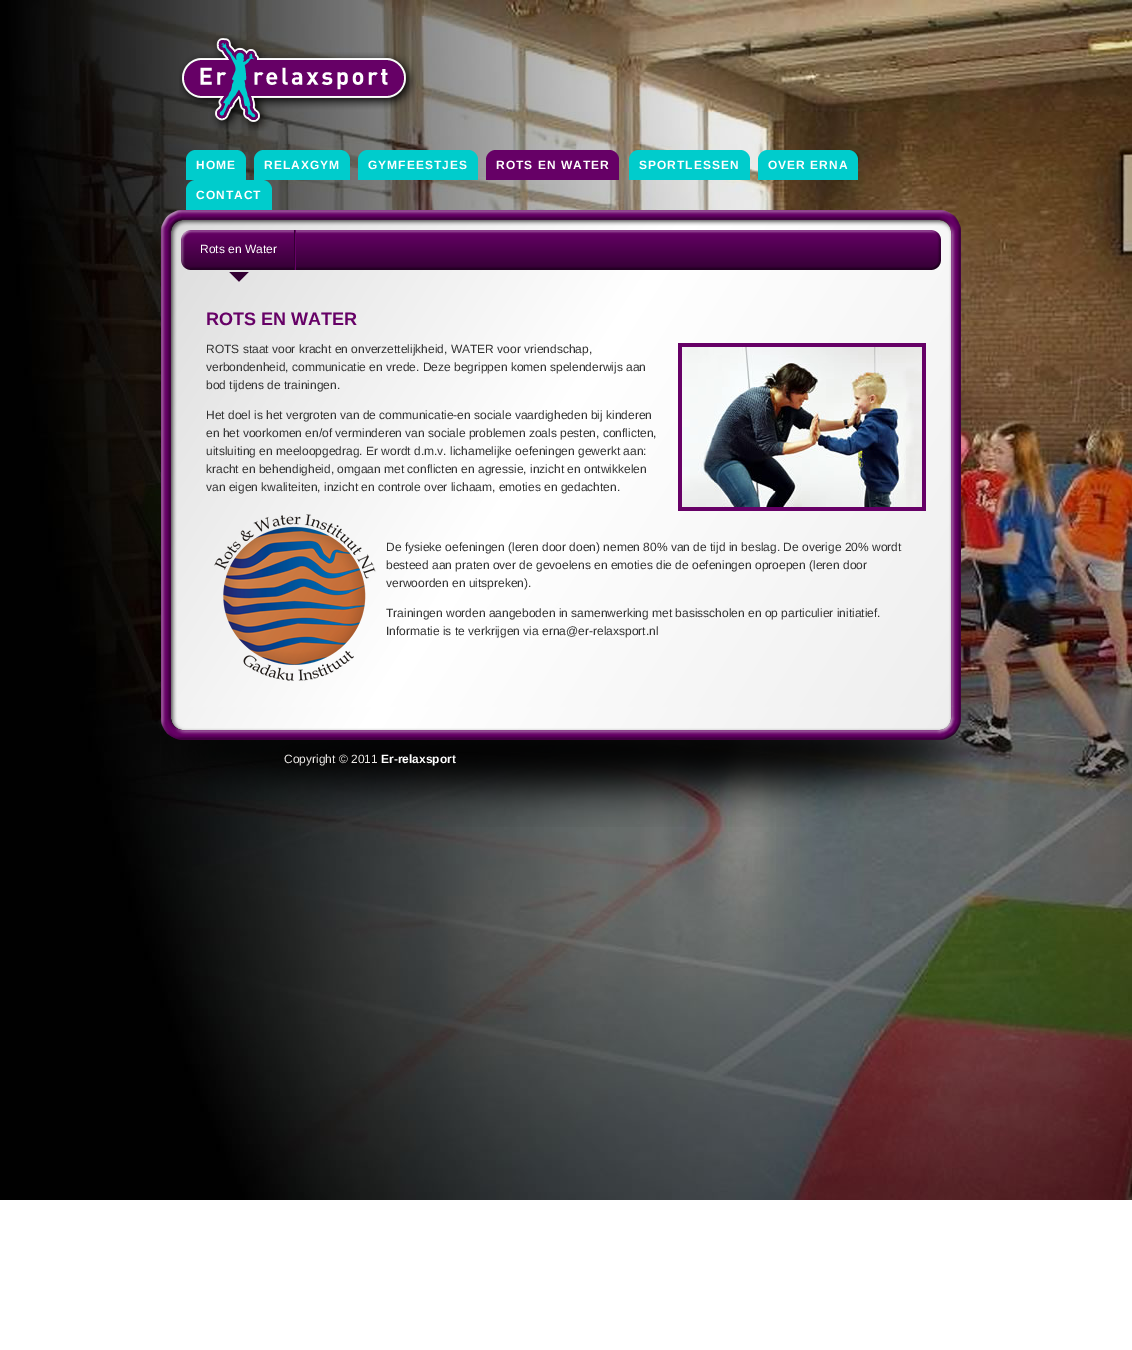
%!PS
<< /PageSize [1132 1350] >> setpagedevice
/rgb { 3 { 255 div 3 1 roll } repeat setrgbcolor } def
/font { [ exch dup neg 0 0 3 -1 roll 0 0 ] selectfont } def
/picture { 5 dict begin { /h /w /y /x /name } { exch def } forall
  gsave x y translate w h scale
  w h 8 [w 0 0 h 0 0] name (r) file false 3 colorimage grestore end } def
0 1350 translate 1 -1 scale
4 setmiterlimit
255 255 255 rgb
0 0 1132 1350 rectfill
(img/1.rgb) 0 0 1132 1200 picture
(img/2.rgb) 179 35 237 96 picture
0 204 204 rgb
196 150 moveto 236 150 lineto 241.5 150 246 154.5 246 160 curveto 246 180 lineto 186 180 lineto 186 160 lineto 186 154.5 190.5 150 196 150 curveto closepath fill
264 150 moveto 340 150 lineto 345.5 150 350 154.5 350 160 curveto 350 180 lineto 254 180 lineto 254 160 lineto 254 154.5 258.5 150 264 150 curveto closepath fill
368 150 moveto 468 150 lineto 473.5 150 478 154.5 478 160 curveto 478 180 lineto 358 180 lineto 358 160 lineto 358 154.5 362.5 150 368 150 curveto closepath fill
102 0 102 rgb
496 150 moveto 609 150 lineto 614.5 150 619 154.5 619 160 curveto 619 180 lineto 486 180 lineto 486 160 lineto 486 154.5 490.5 150 496 150 curveto closepath fill
0 204 204 rgb
639 150 moveto 740 150 lineto 745.5 150 750 154.5 750 160 curveto 750 180 lineto 629 180 lineto 629 160 lineto 629 154.5 633.5 150 639 150 curveto closepath fill
768 150 moveto 848 150 lineto 853.5 150 858 154.5 858 160 curveto 858 180 lineto 758 180 lineto 758 160 lineto 758 154.5 762.5 150 768 150 curveto closepath fill
196 180 moveto 262 180 lineto 267.5 180 272 184.5 272 190 curveto 272 210 lineto 186 210 lineto 186 190 lineto 186 184.5 190.5 180 196 180 curveto closepath fill
(img/3.rgb) 161 210 814 500 picture
(img/4.rgb) 181 230 760 40 picture
(img/5.rgb) 294 230 2 40 picture
(img/6.rgb) 229 272 20 10 picture
102 0 102 rgb
678 343 248 168 rectfill
(img/7.rgb) 682 347 240 160 picture
(img/8.rgb) 214 514 162 167 picture
(img/9.rgb) 161 707 830 120 picture
/LiberationSans-Bold 12 font
255 255 255 rgb
196 169 moveto 1 0 (HOME) ashow
264 169 moveto 1 0 (RELAXGYM) ashow
368 169 moveto 1 0 (GYMFEESTJES) ashow
496 169 moveto 1 0 (ROTS EN WATER) ashow
639 169 moveto 1 0 (SPORTLESSEN) ashow
768 169 moveto 1 0 (OVER ERNA) ashow
196 199 moveto 1 0 (CONTACT) ashow
/LiberationSans-Regular 12 font
200 253 moveto (Rots en Water) show
/LiberationSans-Bold 18 font
102 0 102 rgb
206 325 moveto (ROTS EN WATER) show
/LiberationSans-Regular 12 font
51 51 51 rgb
[
  [(ROTS staat voor kracht en onverzettelijkheid, WATER voor vriendschap,) 206 353]
  [(verbondenheid, communicatie en vrede. Deze begrippen komen spelenderwijs aan) 206 371]
  [(bod tijdens de trainingen.) 206 389]
  [(Het doel is het vergroten van de communicatie-en sociale vaardigheden bij kinderen) 206 419]
  [(en het voorkomen en/of verminderen van sociale problemen zoals pesten, conflicten,) 206 437]
  [(uitsluiting en meeloopgedrag. Er wordt d.m.v. lichamelijke oefeningen gewerkt aan:) 206 455]
  [(kracht en behendigheid, omgaan met conflicten en agressie, inzicht en ontwikkelen) 206 473]
  [(van eigen kwaliteiten, inzicht en controle over lichaam, emoties en gedachten.) 206 491]
  [(De fysieke oefeningen \(leren door doen\) nemen 80% van de tijd in beslag. De overige 20% wordt) 386 551]
  [(besteed aan praten over de gevoelens en emoties die de oefeningen oproepen \(leren door) 386 569]
  [(verwoorden en uitspreken\).) 386 587]
  [(Trainingen worden aangeboden in samenwerking met basisscholen en op particulier initiatief.) 386 617]
  [(Informatie is te verkrijgen via erna@er-relaxsport.nl) 386 635]
] { aload pop moveto show } forall
236 233 230 rgb
284 763 moveto (Copyright © 2011) show
/LiberationSans-Bold 12 font
255 255 255 rgb
381 763 moveto (Er-relaxsport) show
showpage
